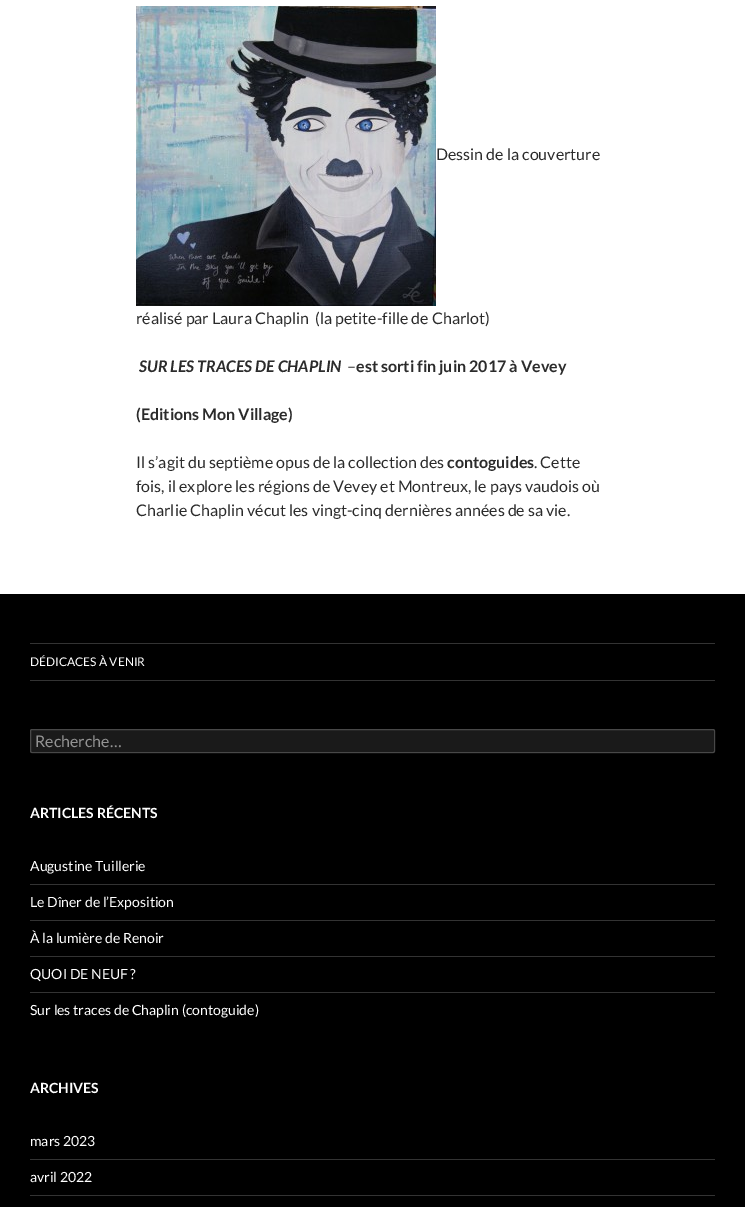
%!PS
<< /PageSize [745 1207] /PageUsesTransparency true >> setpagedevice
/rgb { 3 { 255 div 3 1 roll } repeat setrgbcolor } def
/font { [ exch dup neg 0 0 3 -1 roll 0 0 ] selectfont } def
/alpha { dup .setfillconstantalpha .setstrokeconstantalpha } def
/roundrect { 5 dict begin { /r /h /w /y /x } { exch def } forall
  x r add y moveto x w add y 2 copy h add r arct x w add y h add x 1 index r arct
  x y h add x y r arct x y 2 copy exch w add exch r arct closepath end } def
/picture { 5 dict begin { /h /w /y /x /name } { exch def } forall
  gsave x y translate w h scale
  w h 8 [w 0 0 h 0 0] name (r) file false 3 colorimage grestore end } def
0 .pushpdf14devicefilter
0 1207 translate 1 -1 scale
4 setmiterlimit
255 255 255 rgb
0 0 745 1207 rectfill
(img/1.rgb) 136 6 300 300 picture
[
  [0 594 745 613 0 0 0]
  [30 680 685 1 51 51 51]
  [30 643 685 1 51 51 51]
] { aload pop rgb rectfill } forall
26 26 26 rgb
30 729 685 24 2 roundrect fill
0.2 alpha
255 255 255 rgb
30.5 729.5 684 23 1.5 roundrect stroke
1 alpha
[
  [30 884 685 1 51 51 51]
  [30 920 685 1 51 51 51]
  [30 956 685 1 51 51 51]
  [30 992 685 1 51 51 51]
  [30 1159 685 1 51 51 51]
  [30 1195 685 1 51 51 51]
] { aload pop rgb rectfill } forall
/Lato-Regular 16 font
43 43 43 rgb
436 160 moveto (Dessin de la couverture) show
136 324 moveto (réalisé par Laura Chaplin  \(la petite-fille de Charlot\)) show
/Lato-BoldItalic 16 font
139 372 moveto (SUR LES TRACES DE CHAPLIN) show
/Lato-Regular 16 font
347 372 moveto (–) show
/Lato-Bold 16 font
356 372 moveto (est sorti fin juin 2017 à Vevey) show
136 420 moveto (\(Editions Mon Village\)) show
/Lato-Regular 16 font
136 468 moveto (Il s’agit du septième opus de la collection des) show
/Lato-Bold 16 font
447 468 moveto (contoguides) show
/Lato-Regular 16 font
[
  [(. Cette) 534 468]
  [(fois, il explore les régions de Vevey et Montreux, le pays vaudois où) 136 492]
  [(Charlie Chaplin vécut les vingt-cinq dernières années de sa vie.) 136 516]
] { aload pop moveto show } forall
/Lato-Regular 12 font
255 255 255 rgb
30 666 moveto (DÉDICACES À VENIR) show
/Lato-Regular 16 font
147 147 147 rgb
35 747 moveto (Recherche…) show
/Lato-Bold 14 font
255 255 255 rgb
30 818 moveto (ARTICLES RÉCENTS) show
/Lato-Regular 14 font
[
  [(Augustine Tuillerie) 30 871]
  [(Le Dîner de l’Exposition) 30 907]
  [(À la lumière de Renoir) 30 943]
  [(QUOI DE NEUF ?) 30 979]
  [(Sur les traces de Chaplin \(contoguide\)) 30 1015]
] { aload pop moveto show } forall
/Lato-Bold 14 font
30 1093 moveto (ARCHIVES) show
/Lato-Regular 14 font
30 1146 moveto (mars 2023) show
30 1182 moveto (avril 2022) show
.poppdf14devicefilter showpage
